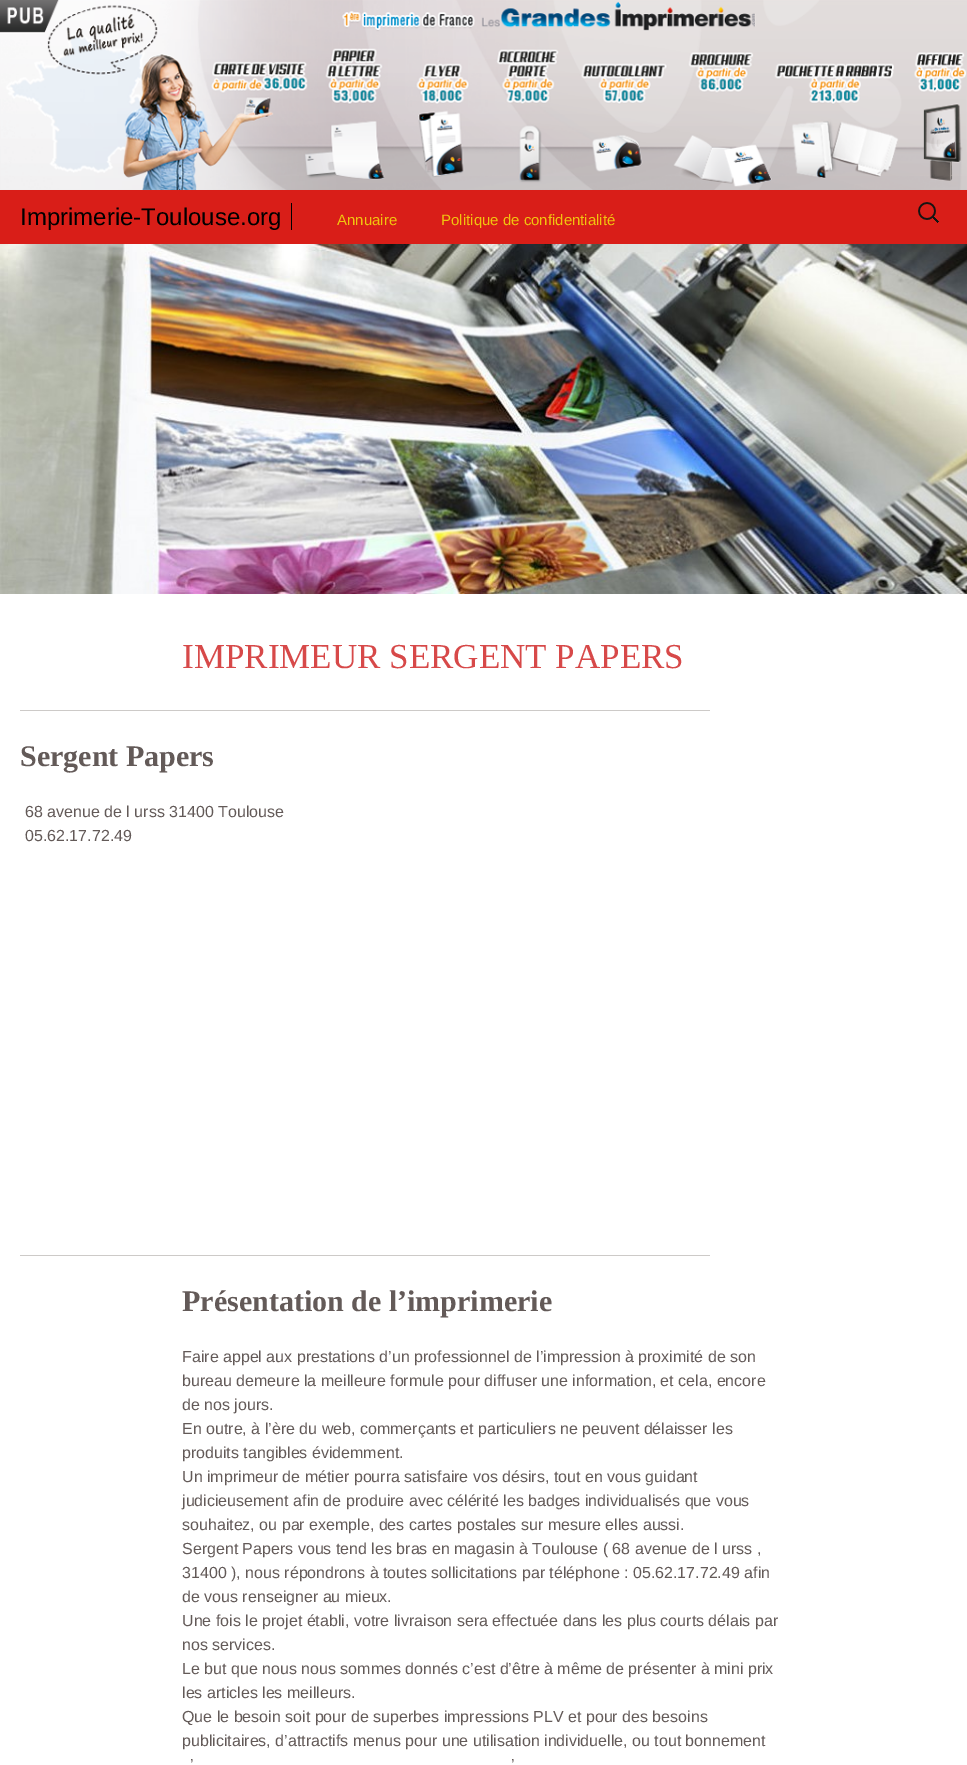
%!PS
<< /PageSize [967 1765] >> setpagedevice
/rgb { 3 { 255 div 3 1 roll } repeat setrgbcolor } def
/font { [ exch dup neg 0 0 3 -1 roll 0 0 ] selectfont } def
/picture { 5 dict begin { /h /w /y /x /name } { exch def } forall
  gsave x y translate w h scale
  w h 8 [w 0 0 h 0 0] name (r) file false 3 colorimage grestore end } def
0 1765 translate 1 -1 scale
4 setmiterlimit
255 255 255 rgb
0 0 967 1765 rectfill
(img/1.rgb) 0 0 967 190 picture
217 30 24 rgb
0 190 967 54 rectfill
0 0 0 rgb
291 203 1 27 rectfill
(img/2.rgb) 918 202 21 21 picture
(img/3.rgb) 0 244 967 350 picture
205 202 200 rgb
20 710 690 1 rectfill
20 1255 690 1 rectfill
/LiberationSans-Regular 24 font
0 0 0 rgb
20 225 moveto (Imprimerie-Toulouse.org) show
/LiberationSans-Regular 15 font
241 196 15 rgb
337 225 moveto (Annuaire) show
441 225 moveto (Politique de confidentialité) show
/LiberationSerif-Regular 35 font
215 73 73 rgb
182 668 moveto (IMPRIMEUR SERGENT PAPERS) show
/LiberationSerif-Bold 30 font
99 90 88 rgb
20 766 moveto (Sergent Papers) show
/LiberationSans-Regular 16 font
25 817 moveto (68 avenue de l urss 31400 Toulouse) show
25 841 moveto (05.62.17.72.49) show
/LiberationSerif-Bold 30 font
182 1311 moveto (Présentation de l’imprimerie) show
/LiberationSans-Regular 16 font
[
  [(Faire appel aux prestations d’un professionnel de l’impression à proximité de son) 182 1362]
  [(bureau demeure la meilleure formule pour diffuser une information, et cela, encore) 182 1386]
  [(de nos jours.) 182 1410]
  [(En outre, à l’ère du web, commerçants et particuliers ne peuvent délaisser les) 182 1434]
  [(produits tangibles évidemment.) 182 1458]
  [(Un imprimeur de métier pourra satisfaire vos désirs, tout en vous guidant) 182 1482]
  [(judicieusement afin de produire avec célérité les badges individualisés que vous) 182 1506]
  [(souhaitez, ou par exemple, des cartes postales sur mesure elles aussi.) 182 1530]
  [(Sergent Papers vous tend les bras en magasin à Toulouse \( 68 avenue de l urss ,) 182 1554]
  [(31400 \), nous répondrons à toutes sollicitations par téléphone : 05.62.17.72.49 afin) 182 1578]
  [(de vous renseigner au mieux.) 182 1602]
  [(Une fois le projet établi, votre livraison sera effectuée dans les plus courts délais par) 182 1626]
  [(nos services.) 182 1650]
  [(Le but que nous nous sommes donnés c’est d’être à même de présenter à mini prix) 182 1674]
  [(les articles les meilleurs.) 182 1698]
  [(Que le besoin soit pour de superbes impressions PLV et pour des besoins) 182 1722]
  [(publicitaires, d’attractifs menus pour une utilisation individuelle, ou tout bonnement) 182 1746]
  [(’) 190 1770]
  [(’) 511 1770]
] { aload pop moveto show } forall
showpage
